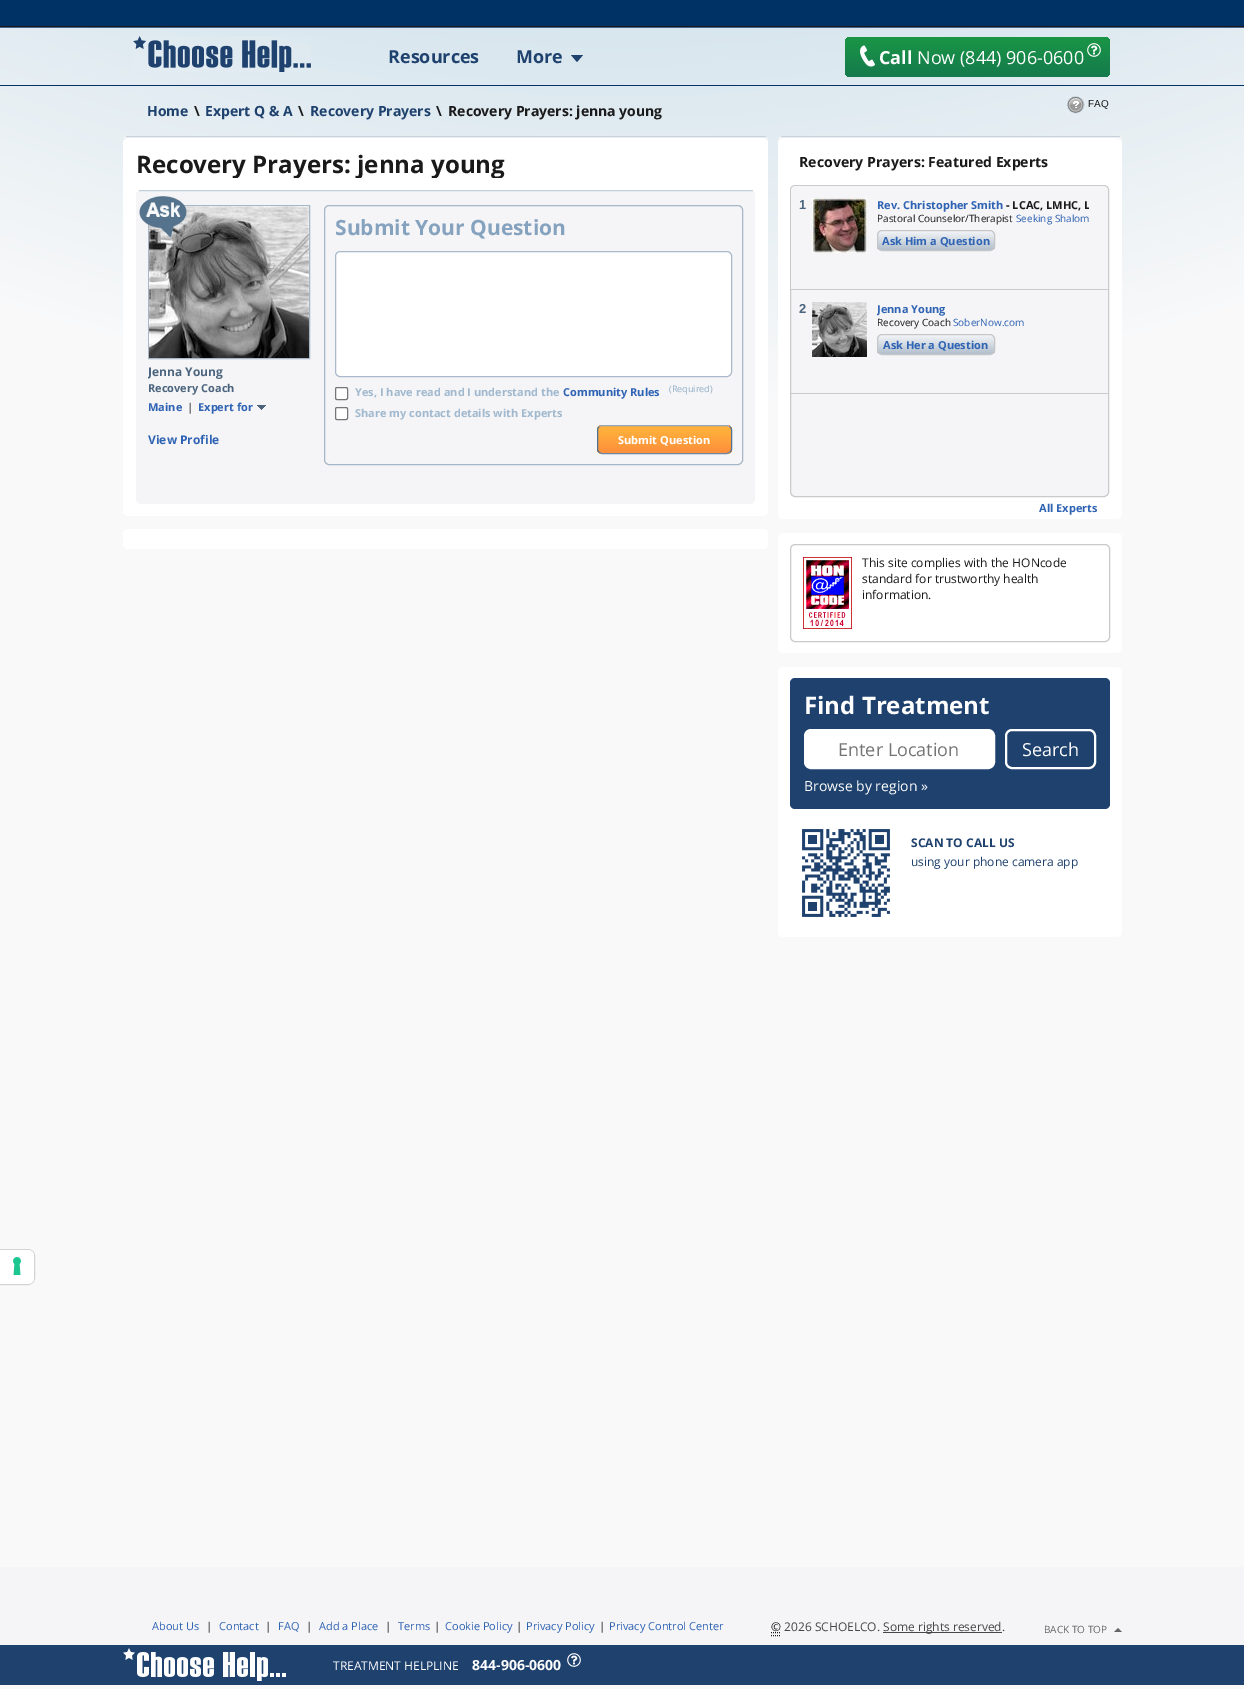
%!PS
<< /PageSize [1244 1689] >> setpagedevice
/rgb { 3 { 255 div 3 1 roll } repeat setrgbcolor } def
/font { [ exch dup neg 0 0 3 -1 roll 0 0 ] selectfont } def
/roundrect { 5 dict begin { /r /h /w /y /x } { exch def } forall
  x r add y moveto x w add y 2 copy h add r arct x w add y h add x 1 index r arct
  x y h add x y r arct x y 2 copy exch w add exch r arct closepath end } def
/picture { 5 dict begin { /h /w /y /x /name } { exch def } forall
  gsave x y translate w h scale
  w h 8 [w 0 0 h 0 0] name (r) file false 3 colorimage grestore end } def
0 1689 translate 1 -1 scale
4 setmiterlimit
255 255 255 rgb
0 0 1244 1689 rectfill
gsave 0 28 moveto 1244 28 lineto 1244 1689 lineto 0 1689 lineto closepath clip newpath 622 -1520 translate 3209 3209 scale
<< /ShadingType 3 /ColorSpace /DeviceRGB /Coords [0 0 0 0 0 1] /Extend [true true] /Function << /FunctionType 3 /Domain [0 1] /Functions [<< /FunctionType 2 /Domain [0 1] /C0 [0.592 0.753 0.839] /C1 [0.592 0.753 0.839] /N 1 >> << /FunctionType 2 /Domain [0 1] /C0 [0.592 0.753 0.839] /C1 [0.976 0.976 0.98] /N 1 >> << /FunctionType 2 /Domain [0 1] /C0 [0.976 0.976 0.98] /C1 [0.976 0.976 0.98] /N 1 >>] /Bounds [0.25 0.6] /Encode [0 1 0 1 0 1] >> >> shfill grestore
[
  [0 0 1244 26 0 50 101]
  [0 85 1244 1 0 50 101]
  [0 26 1244 1 25 25 26]
  [0 27 1244 1 70 99 145]
] { aload pop rgb rectfill } forall
(img/1.rgb) 133 36 178 36 picture
30 65 110 rgb
571 55 moveto 583 55 lineto 577 62 lineto closepath fill
gsave 845 37 265 40 6 roundrect clip newpath
<< /ShadingType 2 /ColorSpace /DeviceRGB /Coords [978 37 978 77] /Extend [true true] /Function << /FunctionType 2 /Domain [0 1] /C0 [0.102 0.588 0.275] /C1 [0.082 0.478 0.302] /N 1 >> >> shfill grestore
(img/2.rgb) 860 45 15 22 picture
(img/3.rgb) 1087 43 14 14 picture
(img/4.rgb) 1066 96 19 18 picture
255 255 255 rgb
123 136 645 380 5 roundrect fill
235 238 241 rgb
128 138 moveto 763 138 lineto 766 138 768 140 768 142 curveto 768 141 lineto 768 139 766 137 763 137 curveto 128 137 lineto 125 137 123 139 123 141 curveto 123 142 lineto 123 140 125 138 128 138 curveto closepath fill
200 210 220 rgb
126 136 640 1 rectfill
245 245 247 rgb
136 190 619 314 5 roundrect fill
196 207 219 rgb
139 190 614 1 rectfill
230 235 240 rgb
139 191 614 1 rectfill
166 183 200 rgb
148.5 205.5 161 153 rectstroke
(img/6.rgb) 149 206 160 152 picture
(img/5.rgb) 139 196 48 41 picture
(img/7.rgb) 257 405 9 5 picture
324.5 205.5 418 259 4.5 roundrect stroke
255 255 255 rgb
335.5 251.5 396 125 4.5 roundrect gsave fill grestore
170 186 202 rgb
stroke
255 255 255 rgb
335.5 387.5 12 12 1.5 roundrect gsave fill grestore
118 118 118 rgb
stroke
255 255 255 rgb
335.5 407.5 12 12 1.5 roundrect gsave fill grestore
118 118 118 rgb
stroke
gsave
597 425 135 29 5 roundrect clip newpath
gsave 597 425 moveto 732 425 lineto 732 426 lineto 597 426 lineto closepath clip newpath
<< /ShadingType 2 /ColorSpace /DeviceRGB /Coords [665 399 665 426] /Extend [true true] /Function << /FunctionType 3 /Domain [0 1] /Functions [<< /FunctionType 2 /Domain [0 1] /C0 [1 0.69 0.231] /C1 [1 0.69 0.231] /N 1 >> << /FunctionType 2 /Domain [0 1] /C0 [1 0.69 0.231] /C1 [0.992 0.557 0.231] /N 1 >>] /Bounds [0.14] /Encode [0 1 0 1] >> >> shfill grestore
gsave 597 426 moveto 732 426 lineto 732 453 lineto 597 453 lineto closepath clip newpath
<< /ShadingType 2 /ColorSpace /DeviceRGB /Coords [665 426 665 453] /Extend [true true] /Function << /FunctionType 3 /Domain [0 1] /Functions [<< /FunctionType 2 /Domain [0 1] /C0 [1 0.69 0.231] /C1 [1 0.69 0.231] /N 1 >> << /FunctionType 2 /Domain [0 1] /C0 [1 0.69 0.231] /C1 [0.992 0.557 0.231] /N 1 >>] /Bounds [0.14] /Encode [0 1 0 1] >> >> shfill grestore
gsave 597 453 moveto 732 453 lineto 732 454 lineto 597 454 lineto closepath clip newpath
<< /ShadingType 2 /ColorSpace /DeviceRGB /Coords [665 453 665 480] /Extend [true true] /Function << /FunctionType 3 /Domain [0 1] /Functions [<< /FunctionType 2 /Domain [0 1] /C0 [1 0.69 0.231] /C1 [1 0.69 0.231] /N 1 >> << /FunctionType 2 /Domain [0 1] /C0 [1 0.69 0.231] /C1 [0.992 0.557 0.231] /N 1 >>] /Bounds [0.14] /Encode [0 1 0 1] >> >> shfill grestore
grestore
149 167 187 rgb
599 427 moveto 601.5 425.5 lineto 706 425.5 lineto 727 425.5 lineto 730 427 lineto stroke
80 113 146 rgb
730 427 moveto 731 427.5 731.5 429 731.5 430 curveto 731.5 449 lineto 731.5 450 731 451.5 730 452 curveto stroke
107 135 163 rgb
730 452 moveto 727 453.5 lineto 601.5 453.5 lineto 599 452 lineto stroke
80 113 146 rgb
599 452 moveto 598 451.5 597.5 450 597.5 449 curveto 597.5 430 lineto 597.5 429 598 427.5 599 427 curveto stroke
255 255 255 rgb
123 529 645 20 5 roundrect fill
778 136 344 383 5 roundrect fill
235 238 241 rgb
783 138 moveto 1117 138 lineto 1120 138 1122 140 1122 142 curveto 1122 139 1120 137 1117 137 curveto 783 137 lineto 780 137 778 139 778 142 curveto 778 140 780 138 783 138 curveto closepath fill
200 210 220 rgb
781 136 339 1 rectfill
245 245 247 rgb
790.5 185.5 318 311 4.5 roundrect gsave fill grestore
202 202 202 rgb
stroke
245 245 247 rgb
796 186 moveto 1103 186 lineto 1106 186 1108 188 1108 191 curveto 1108 290 lineto 791 290 lineto 791 191 lineto 791 188 793 186 796 186 curveto closepath fill
202 202 202 rgb
791 289 317 1 rectfill
(img/8.rgb) 812 198 55 55 picture
gsave
877 230 118 21 5 roundrect clip newpath
gsave 877 231 moveto 995 231 lineto 995 250 lineto 877 250 lineto closepath clip newpath
<< /ShadingType 2 /ColorSpace /DeviceRGB /Coords [936 231 936 250] /Extend [true true] /Function << /FunctionType 2 /Domain [0 1] /C0 [0.953 0.961 0.973] /C1 [0.698 0.749 0.8] /N 1 >> >> shfill grestore
grestore
197 198 199 rgb
877.5 230.5 117 20 4.5 roundrect stroke
202 202 202 rgb
791 393 317 1 rectfill
(img/9.rgb) 812 302 55 55 picture
gsave
877 334 118 21 5 roundrect clip newpath
gsave 877 335 moveto 995 335 lineto 995 354 lineto 877 354 lineto closepath clip newpath
<< /ShadingType 2 /ColorSpace /DeviceRGB /Coords [936 335 936 354] /Extend [true true] /Function << /FunctionType 2 /Domain [0 1] /C0 [0.953 0.961 0.973] /C1 [0.698 0.749 0.8] /N 1 >> >> shfill grestore
grestore
197 198 199 rgb
877.5 334.5 117 20 4.5 roundrect stroke
255 255 255 rgb
778 533 344 120 5 roundrect fill
202 202 202 rgb
790.5 544.5 319 97 4.5 roundrect stroke
(img/10.rgb) 803 557 49 72 picture
255 255 255 rgb
778 667 344 270 5 roundrect fill
30 65 110 rgb
790 678 320 131 5 roundrect fill
255 255 255 rgb
805 730 189 38 6 roundrect gsave fill grestore
2 setlinewidth
stroke
1006 730 89 38 6 roundrect stroke
(img/11.rgb) 802 829 88 88 picture
212 212 213 rgb
1 setlinewidth
-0.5 1249.5 moveto 28 1249.5 lineto 31.5 1249.5 34.5 1252.5 34.5 1256 curveto 34.5 1278 lineto 34.5 1281.5 31.5 1284.5 28 1284.5 curveto -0.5 1284.5 lineto closepath stroke
255 255 255 rgb
0 1250 moveto 28 1250 lineto 31.5 1250 34 1252.5 34 1256 curveto 34 1278 lineto 34 1281.5 31.5 1284 28 1284 curveto 0 1284 lineto closepath fill
(img/12.rgb) 13 1257 8 18 picture
245 245 247 rgb
0 1567 1244 78 rectfill
26 26 27 rgb
[1 1] 0 setdash
771 1635.5 moveto 781 1635.5 lineto 771 1632.5 moveto 781 1632.5 lineto stroke
71 71 72 rgb
883 1632 119 1 rectfill
102 102 102 rgb
1122 1632 moveto 1114 1632 lineto 1118 1628 lineto closepath fill
30 65 110 rgb
0 1645 1244 40 rectfill
(img/13.rgb) 123 1648 163 33 picture
(img/14.rgb) 567 1653 14 14 picture
/OpenSans-Bold 18 font
388 63 moveto (Resources) show
516 63 moveto (More) show
255 255 255 rgb
879 64 moveto (Call) show
/OpenSans-Regular 18 font
917 64 moveto (Now \(844\) 906-0600) show
/OpenSans-Bold 14 font
30 65 110 rgb
147 116 moveto (Home) show
26 26 27 rgb
194 116 moveto (\\) show
30 65 110 rgb
205 116 moveto (Expert Q & A) show
26 26 27 rgb
298 116 moveto (\\) show
30 65 110 rgb
310 116 moveto (Recovery Prayers) show
26 26 27 rgb
436 116 moveto (\\) show
448 116 moveto (Recovery Prayers: jenna young) show
/LiberationSans-Regular 10 font
1088 107 moveto (FAQ) show
gsave
136 149 619 29 rectclip
/OpenSans-Bold 24.1 font
136 173 moveto (Recovery Prayers: jenna young) show
grestore
gsave
148 363 162 17 rectclip
/OpenSans-Bold 12 font
76 101 126 rgb
148 376 moveto (Jenna Young) show
grestore
/OpenSans-Bold 11 font
76 101 126 rgb
148 392 moveto (Recovery Coach) show
47 99 179 rgb
148 411 moveto (Maine) show
/OpenSans-Regular 11 font
26 26 27 rgb
187 411 moveto (|) show
/OpenSans-Bold 11 font
47 99 179 rgb
198 411 moveto (Expert for) show
/OpenSans-Bold 12 font
148 444 moveto (View Profile) show
/OpenSans-Bold 21 font
133 162 190 rgb
335 235 moveto (Submit Your Question) show
/OpenSans-Bold 11 font
161 185 206 rgb
355 396 moveto (Yes, I have read and I understand the) show
47 99 179 rgb
563 396 moveto (Community Rules) show
/OpenSans-Regular 9 font
143 173 199 rgb
669 392 moveto (\(Required\)) show
/OpenSans-Bold 11 font
161 185 206 rgb
355 417 moveto (Share my contact details with Experts) show
255 255 255 rgb
618 444 moveto (Submit Question) show
/OpenSans-Bold 14.1 font
26 26 27 rgb
799 167 moveto (Recovery Prayers: Featured Experts) show
/LiberationSans-Bold 13 font
76 101 126 rgb
799 209 moveto (1) show
/OpenSans-Bold 11 font
47 99 179 rgb
877 209 moveto (Rev. Christopher Smith) show
gsave
877 198 212 14 rectclip
26 26 27 rgb
1006 209 moveto (- LCAC, LMHC, L) show
grestore
/OpenSans-Regular 10 font
26 26 27 rgb
877 222 moveto (Pastoral Counselor/Therapist) show
47 99 179 rgb
1016 222 moveto (Seeking Shalom) show
/OpenSans-Bold 11 font
882 245 moveto (Ask Him a Question) show
/LiberationSans-Bold 13 font
76 101 126 rgb
799 313 moveto (2) show
gsave
877 302 212 14 rectclip
/OpenSans-Bold 11 font
47 99 179 rgb
877 313 moveto (Jenna Young) show
grestore
/OpenSans-Regular 10 font
26 26 27 rgb
877 326 moveto (Recovery Coach) show
47 99 179 rgb
953 326 moveto (SoberNow.com) show
/OpenSans-Bold 11 font
883 349 moveto (Ask Her a Question) show
1039 512 moveto (All Experts) show
/OpenSans-Regular 12 font
26 26 27 rgb
[
  [(This site complies with the HONcode) 862 567]
  [(standard for trustworthy health) 862 583]
  [(information.) 862 599]
] { aload pop moveto show } forall
/OpenSans-Bold 24 font
255 255 255 rgb
804 714 moveto (Find Treatment) show
/OpenSans-Regular 18 font
117 117 117 rgb
838 756 moveto (Enter Location) show
255 255 255 rgb
1022 756 moveto (Search) show
/OpenSans-Regular 14 font
804 791 moveto (Browse by region ») show
/OpenSans-Bold 12 font
30 65 110 rgb
911 847 moveto (SCAN TO CALL US) show
/OpenSans-Regular 12 font
911 866 moveto (using your phone camera app) show
/OpenSans-Regular 11 font
47 99 179 rgb
152 1630 moveto (About Us) show
26 26 27 rgb
206 1630 moveto (|) show
47 99 179 rgb
219 1630 moveto (Contact) show
26 26 27 rgb
265 1630 moveto (|) show
47 99 179 rgb
278 1630 moveto (FAQ) show
26 26 27 rgb
306 1630 moveto (|) show
47 99 179 rgb
319 1630 moveto (Add a Place) show
26 26 27 rgb
385 1630 moveto (|) show
47 99 179 rgb
398 1630 moveto (Terms) show
26 26 27 rgb
434 1630 moveto (|) show
47 99 179 rgb
445 1630 moveto (Cookie Policy) show
26 26 27 rgb
516 1630 moveto (|) show
47 99 179 rgb
526 1630 moveto (Privacy Policy) show
26 26 27 rgb
599 1630 moveto (|) show
47 99 179 rgb
609 1630 moveto (Privacy Control Center) show
/OpenSans-Regular 12 font
26 26 27 rgb
771 1631 moveto (©) show
71 71 72 rgb
784 1631 moveto (2026 SCHOELCO.) show
883 1631 moveto (Some rights reserved.) show
/OpenSans-Regular 10 font
102 102 102 rgb
1044 1633 moveto (BACK TO TOP) show
/OpenSans-Regular 12 font
255 255 255 rgb
333 1670 moveto (TREATMENT HELPLINE) show
/OpenSans-Bold 14 font
472 1670 moveto (844-906-0600) show
showpage
